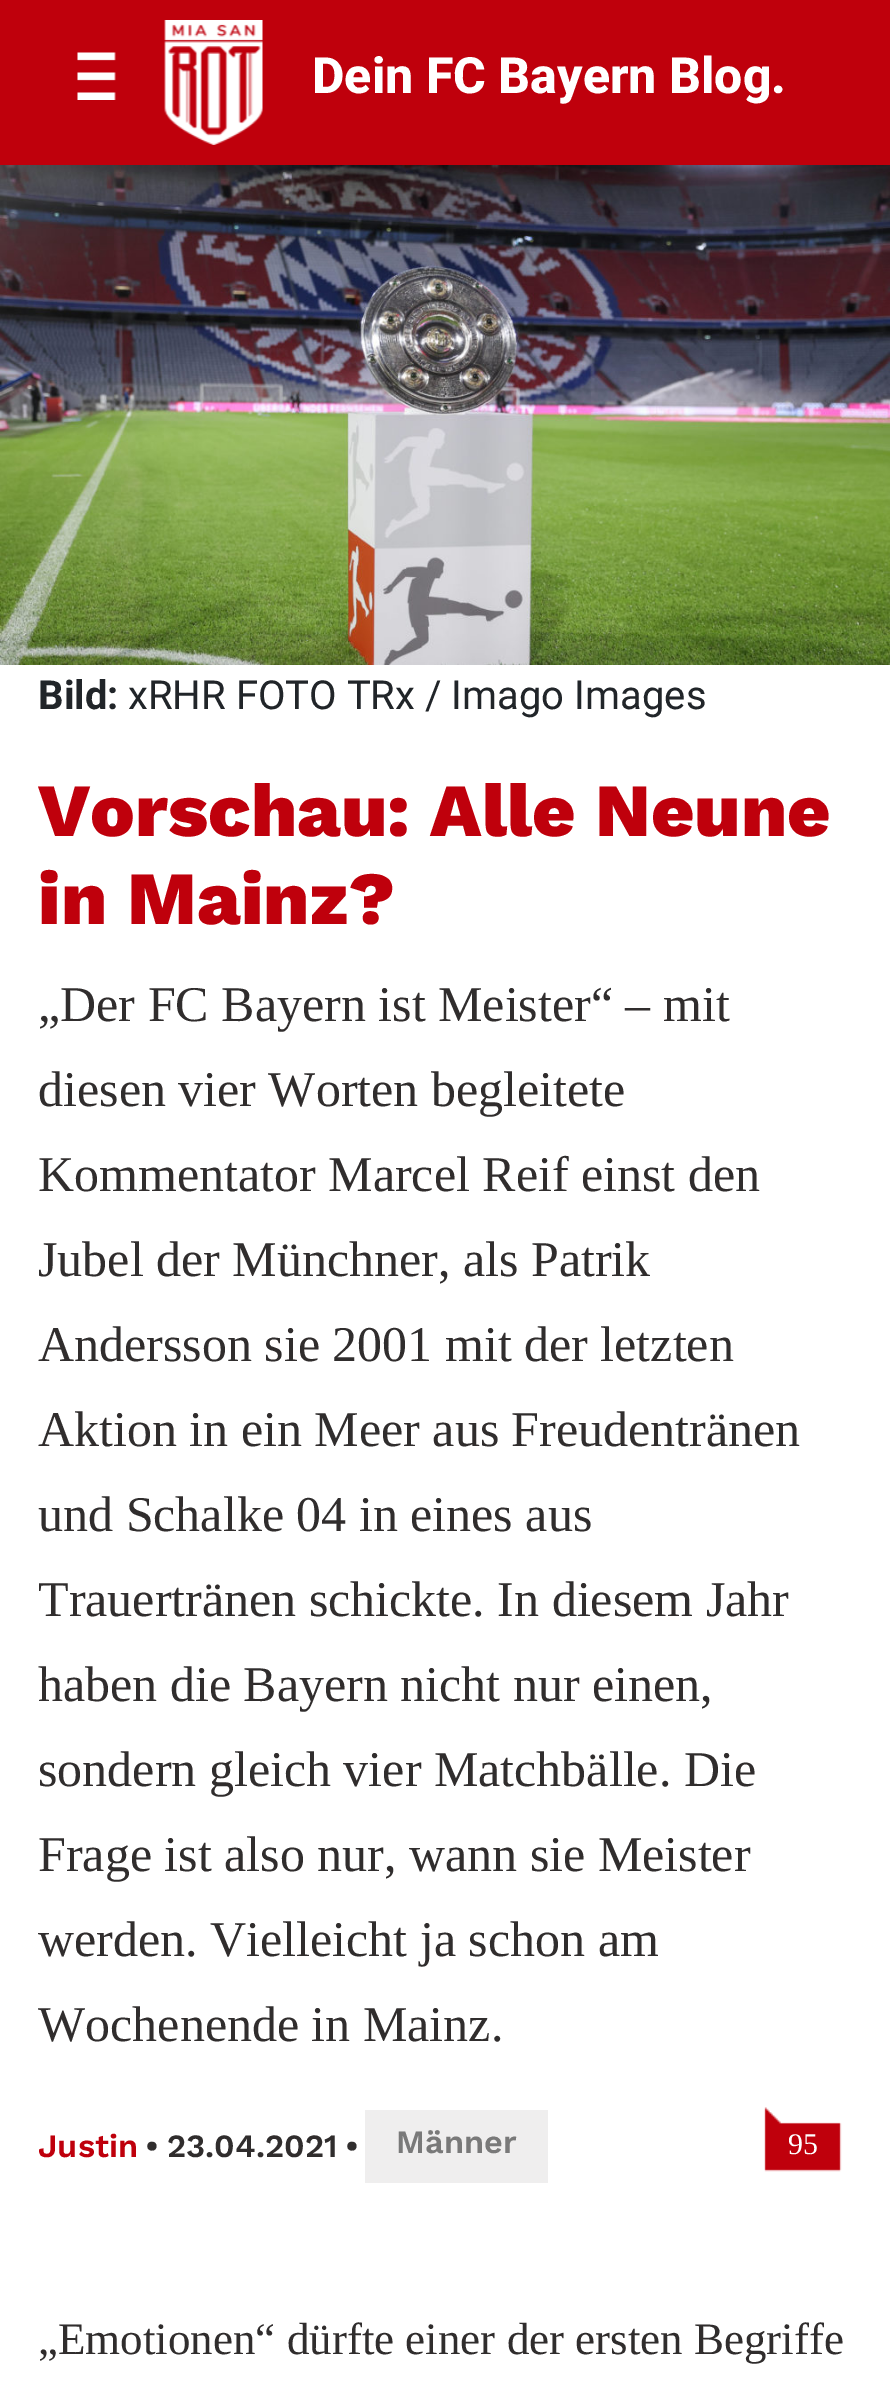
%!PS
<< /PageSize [890 2382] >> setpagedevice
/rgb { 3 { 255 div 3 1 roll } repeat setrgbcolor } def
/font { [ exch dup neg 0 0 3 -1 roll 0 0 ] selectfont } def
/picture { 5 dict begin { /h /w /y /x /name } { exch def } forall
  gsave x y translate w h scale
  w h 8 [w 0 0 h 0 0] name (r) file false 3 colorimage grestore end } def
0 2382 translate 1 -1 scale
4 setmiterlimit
191 0 12 rgb
0 0 890 2382 rectfill
(img/1.rgb) 77 52 39 48 picture
(img/2.rgb) 164 20 99 125 picture
255 255 255 rgb
0 665 890 1717 rectfill
(img/3.rgb) 0 165 890 500 picture
239 238 238 rgb
365 2110 183 73 rectfill
(img/4.rgb) 764 2107 78 65 picture
/Roboto-ExtraBold 50 font
255 255 255 rgb
312 93 moveto (Dein FC Bayern Blog.) show
/Roboto-Bold 40 font
33 37 41 rgb
38 709 moveto (Bild:) show
/Roboto-Regular 40 font
128 709 moveto (xRHR FOTO TRx / Imago Images) show
/WorkSans-ExtraBold 75 font
191 0 12 rgb
38 836 moveto (Vorschau: Alle Neune) show
38 924 moveto (in Mainz?) show
/LiberationSerif-Regular 50 font
48 45 45 rgb
[
  [(„Der FC Bayern ist Meister“ – mit) 38 1021]
  [(diesen vier Worten begleitete) 38 1106]
  [(Kommentator Marcel Reif einst den) 38 1191]
  [(Jubel der Münchner, als Patrik) 38 1276]
  [(Andersson sie 2001 mit der letzten) 38 1361]
  [(Aktion in ein Meer aus Freudentränen) 38 1446]
  [(und Schalke 04 in eines aus) 38 1531]
  [(Trauertränen schickte. In diesem Jahr) 38 1616]
  [(haben die Bayern nicht nur einen,) 38 1701]
  [(sondern gleich vier Matchbälle. Die) 38 1786]
  [(Frage ist also nur, wann sie Meister) 38 1871]
  [(werden. Vielleicht ja schon am) 38 1956]
  [(Wochenende in Mainz.) 38 2041]
] { aload pop moveto show } forall
/WorkSans-SemiBold 32.5 font
191 0 12 rgb
38 2157 moveto (Justin) show
48 45 45 rgb
[
  [(•) 145 2157]
  [(23.04.2021) 167 2157]
  [(•) 345 2157]
] { aload pop moveto show } forall
121 121 121 rgb
396 2153 moveto (Männer) show
/LiberationSerif-Regular 30 font
255 255 255 rgb
788 2154 moveto (95) show
/LiberationSerif-Regular 45 font
48 45 45 rgb
38 2354 moveto („Emotionen“ dürfte einer der ersten Begriffe) show
showpage
